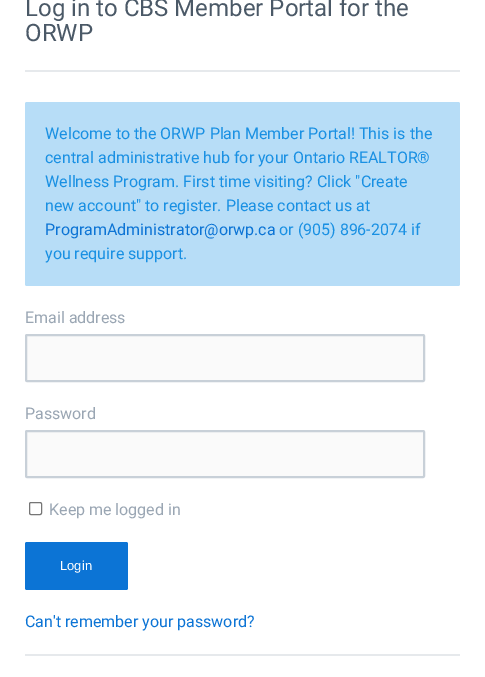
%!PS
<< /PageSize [485 677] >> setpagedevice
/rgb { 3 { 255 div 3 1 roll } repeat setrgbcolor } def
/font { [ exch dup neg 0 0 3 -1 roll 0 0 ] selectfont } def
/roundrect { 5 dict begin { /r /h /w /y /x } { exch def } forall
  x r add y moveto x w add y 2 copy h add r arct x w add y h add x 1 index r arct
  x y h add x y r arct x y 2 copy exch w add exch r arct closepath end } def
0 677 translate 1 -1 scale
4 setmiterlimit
255 255 255 rgb
0 0 485 677 rectfill
230 233 236 rgb
25 70 435 2 rectfill
183 221 247 rgb
25 102 435 184 2 roundrect fill
250 250 250 rgb
26 335 398 46 1 roundrect gsave fill grestore
200 208 216 rgb
2 setlinewidth
stroke
250 250 250 rgb
26 431 398 46 1 roundrect gsave fill grestore
200 208 216 rgb
stroke
118 118 118 rgb
1 setlinewidth
29.5 502.5 12 12 1.5 roundrect stroke
12 116 213 rgb
25 542 103 48 2 roundrect fill
230 233 236 rgb
25 654 435 2 rectfill
/Roboto-Regular 24 font
75 89 103 rgb
25 16 moveto (Log in to CBS Member Portal for the) show
25 41 moveto (ORWP) show
/Roboto-Regular 16 font
25 144 227 rgb
[
  [(Welcome to the ORWP Plan Member Portal! This is the) 45 139]
  [(central administrative hub for your Ontario REALTOR®) 45 163]
  [(Wellness Program. First time visiting? Click "Create) 45 187]
  [(new account" to register. Please contact us at) 45 211]
] { aload pop moveto show } forall
12 116 213 rgb
45 235 moveto (ProgramAdministrator@orwp.ca) show
25 144 227 rgb
279 235 moveto (or \(905\) 896-2074 if) show
45 259 moveto (you require support.) show
154 166 179 rgb
[
  [(Email address) 25 323]
  [(Password) 25 419]
  [(Keep me logged in) 49 515]
] { aload pop moveto show } forall
/LiberationSans-Regular 13 font
255 255 255 rgb
60 570 moveto (Login) show
/Roboto-Regular 16 font
12 116 213 rgb
25 627 moveto (Can't remember your password?) show
showpage
